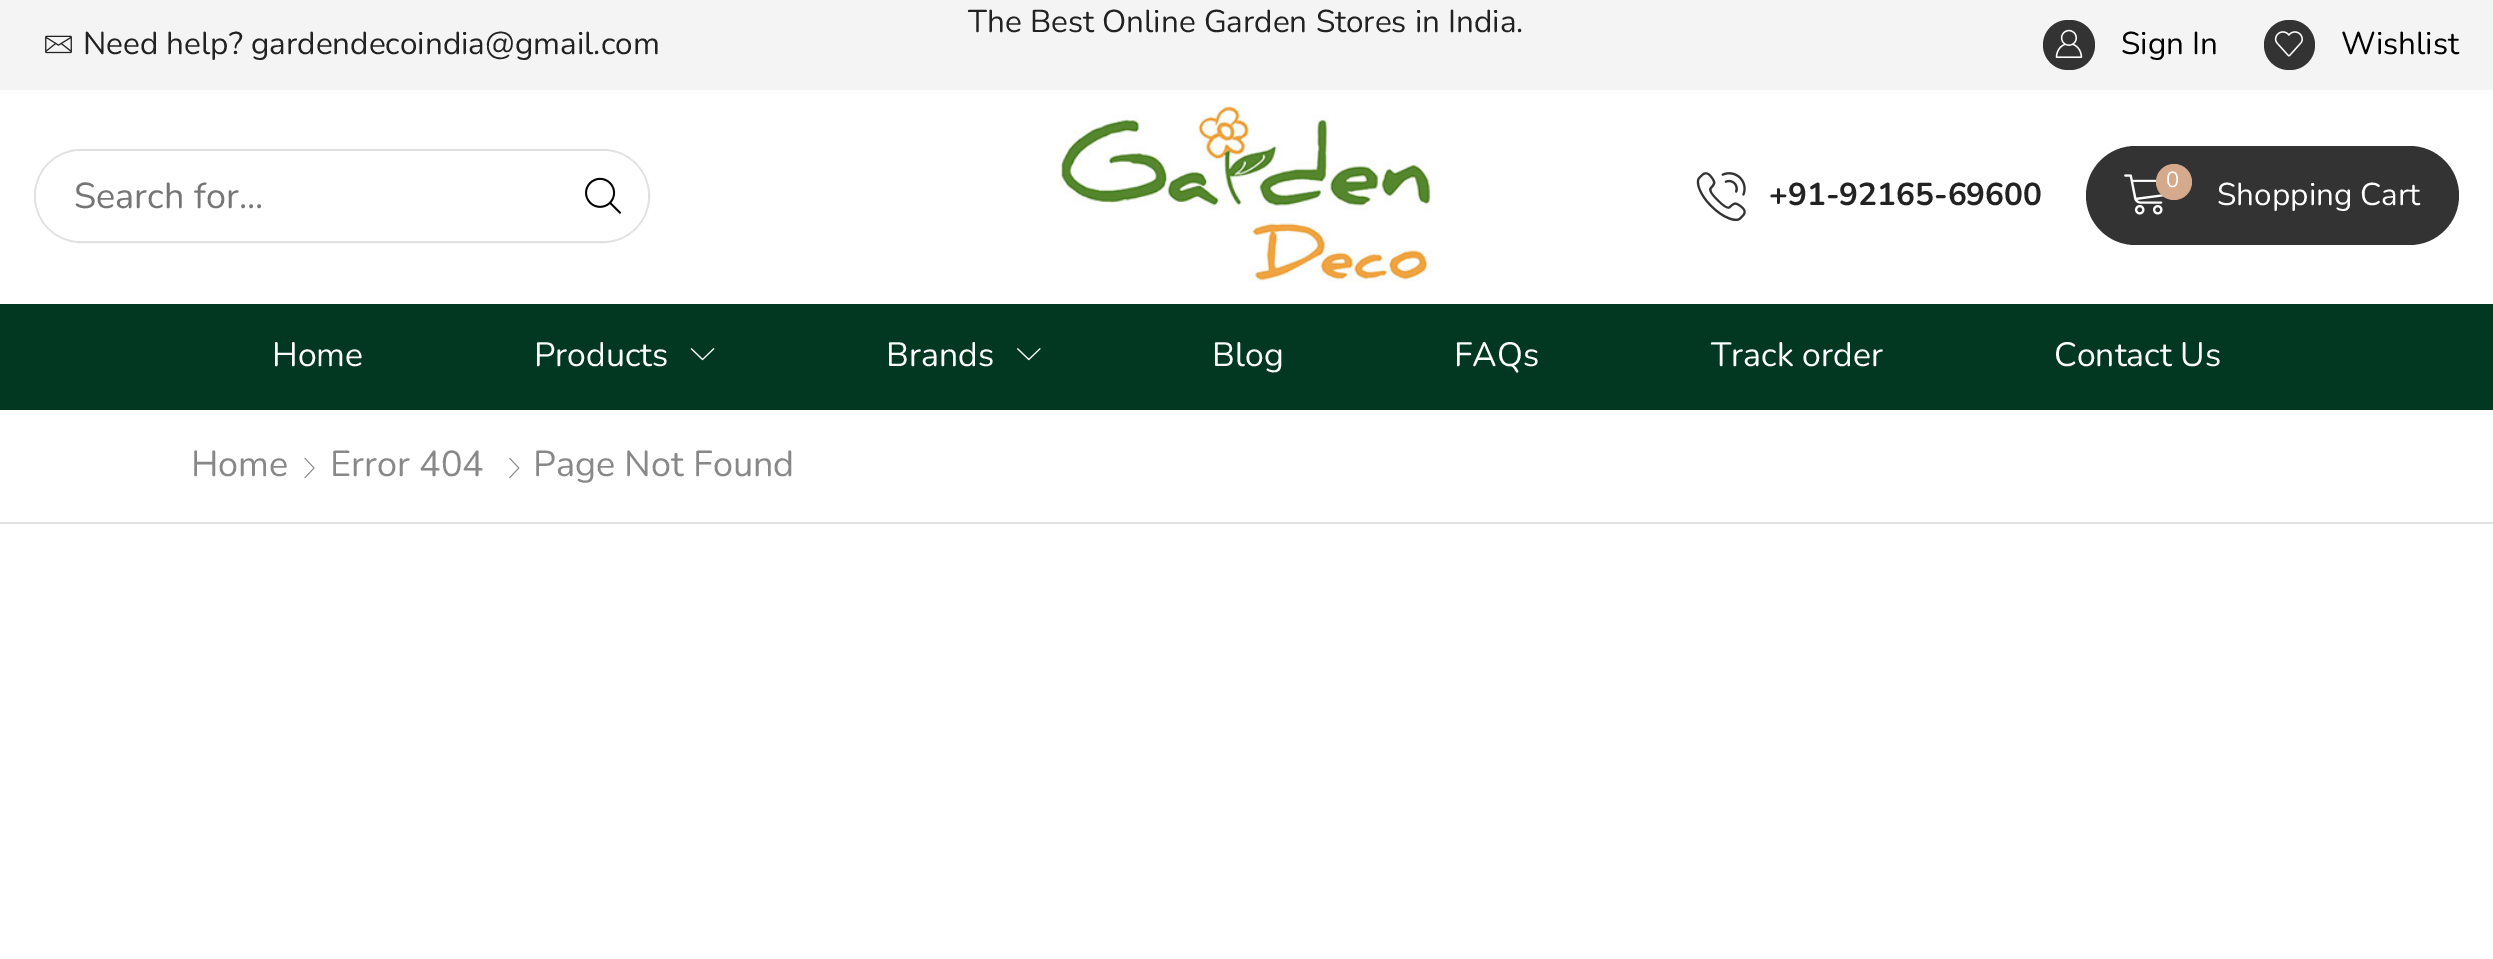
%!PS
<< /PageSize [2493 959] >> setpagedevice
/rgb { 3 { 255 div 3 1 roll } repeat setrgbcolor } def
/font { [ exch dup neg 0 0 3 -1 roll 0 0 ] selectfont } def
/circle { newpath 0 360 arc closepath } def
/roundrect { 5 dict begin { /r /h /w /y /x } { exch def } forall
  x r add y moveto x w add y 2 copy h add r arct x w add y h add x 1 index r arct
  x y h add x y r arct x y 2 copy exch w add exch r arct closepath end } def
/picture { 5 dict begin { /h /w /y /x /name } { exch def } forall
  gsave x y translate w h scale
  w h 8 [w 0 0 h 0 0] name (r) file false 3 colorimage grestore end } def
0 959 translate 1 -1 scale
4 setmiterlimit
255 255 255 rgb
0 0 2493 959 rectfill
244 244 244 rgb
0 0 2493 90 rectfill
(img/1.rgb) 45 35 27 19 picture
51 51 51 rgb
2043 20 52 50 25 roundrect fill
(img/2.rgb) 2055 29 28 29 picture
2264 20 51 50 25 roundrect fill
(img/3.rgb) 2274 31 29 26 picture
225 225 225 rgb
2 setlinewidth
35 150 614 92 46 roundrect stroke
255 255 255 rgb
81 151 moveto 558 151 lineto 558 241 lineto 81 241 lineto 56 241 36 221 36 196 curveto 36 171 56 151 81 151 curveto closepath fill
558 151 moveto 603 151 lineto 628 151 648 171 648 196 curveto 648 221 628 241 603 241 curveto 558 241 lineto closepath fill
(img/4.rgb) 585 177 36 37 picture
(img/5.rgb) 1059 106 373 176 picture
(img/6.rgb) 1696 172 50 50 picture
51 51 51 rgb
2086 146 373 99 49.5 roundrect fill
(img/7.rgb) 2124 174 40 41 picture
212 169 140 rgb
2174 182 18 circle fill
2 56 33 rgb
0 304 2493 106 rectfill
(img/8.rgb) 690 348 25 13 picture
(img/9.rgb) 1017 348 24 13 picture
225 225 225 rgb
0 522 2493 2 rectfill
(img/10.rgb) 304 457 11 22 picture
(img/11.rgb) 509 457 11 22 picture
/Nunito-Regular 31.5 font
34 34 34 rgb
968 32 moveto (The Best Online Garden Stores in India.) show
83 54 moveto (Need help? gardendecoindia@gmail.com) show
0 0 0 rgb
2121 54 moveto (Sign In) show
2341 54 moveto (Wishlist) show
/Nunito-Regular 36 font
117 117 117 rgb
74 208 moveto (Search for...) show
/Nunito-Bold 31.5 font
34 34 34 rgb
1769 205 moveto (+91-92165-69600) show
/Nunito-Regular 22 font
255 255 255 rgb
2166 187 moveto (0) show
/Nunito-Regular 31.5 font
2217 205 moveto (Shopping Cart) show
/Nunito-Regular 33.75 font
[
  [(Home) 272 366]
  [(Products) 534 366]
  [(Brands) 886 366]
  [(Blog) 1212 366]
  [(FAQs) 1454 366]
  [(Track order) 1711 366]
  [(Contact Us) 2054 366]
] { aload pop moveto show } forall
/Nunito-Regular 36 font
136 136 136 rgb
[
  [(Home) 191 476]
  [(Error 404) 330 476]
  [(Page Not Found) 533 476]
] { aload pop moveto show } forall
showpage
